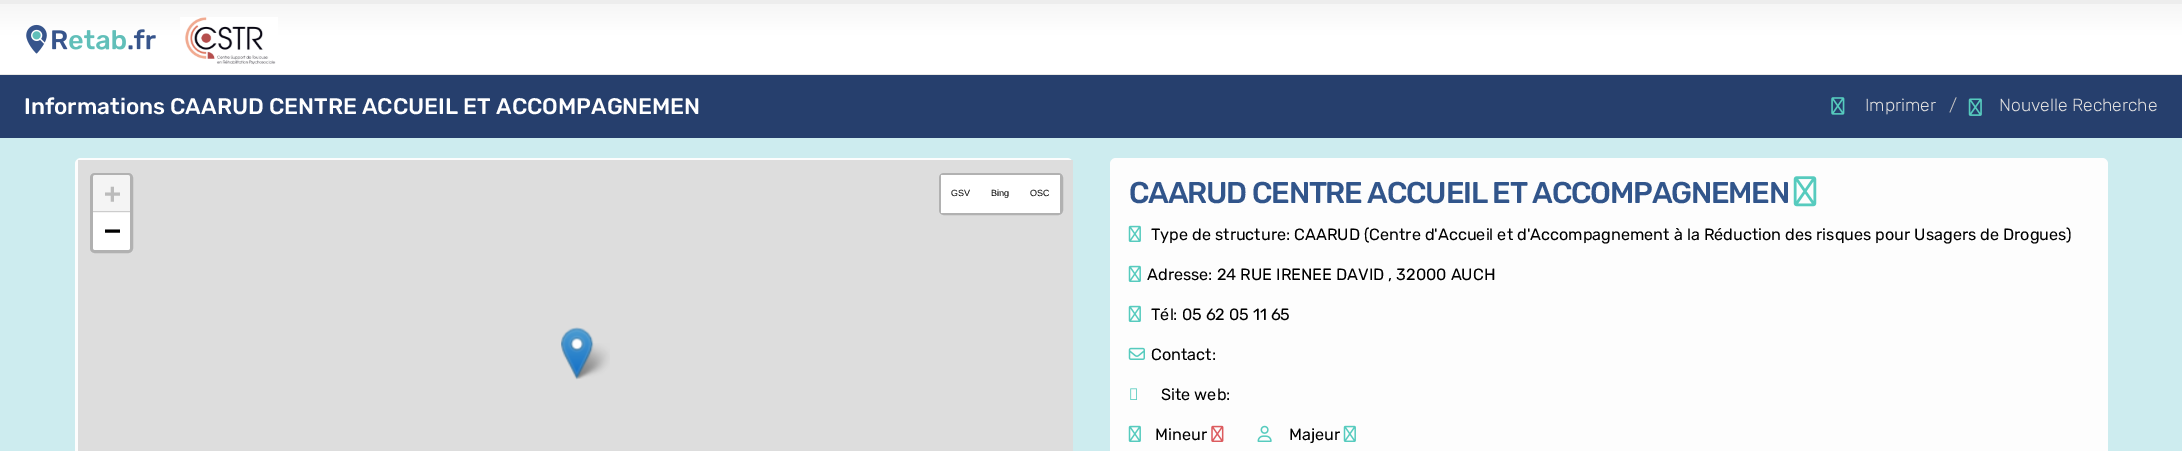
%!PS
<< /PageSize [2182 451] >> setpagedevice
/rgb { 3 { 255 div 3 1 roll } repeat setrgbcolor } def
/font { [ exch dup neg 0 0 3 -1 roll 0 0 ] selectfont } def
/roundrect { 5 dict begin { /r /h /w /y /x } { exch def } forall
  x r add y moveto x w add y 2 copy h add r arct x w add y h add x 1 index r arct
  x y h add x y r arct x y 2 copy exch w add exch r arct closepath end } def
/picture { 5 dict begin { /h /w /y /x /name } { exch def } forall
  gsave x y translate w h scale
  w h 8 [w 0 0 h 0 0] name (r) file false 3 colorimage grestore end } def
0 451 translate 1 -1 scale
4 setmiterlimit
205 236 239 rgb
0 0 2182 451 rectfill
gsave 0 4 moveto 2182 4 lineto 2182 74 lineto 0 74 lineto closepath clip newpath
<< /ShadingType 2 /ColorSpace /DeviceRGB /Coords [1091 3.7 1091 74] /Extend [true true] /Function << /FunctionType 3 /Domain [0 1] /Functions [<< /FunctionType 2 /Domain [0 1] /C0 [0.965 0.965 0.965] /C1 [1 1 1] /N 1 >> << /FunctionType 2 /Domain [0 1] /C0 [1 1 1] /C1 [1 1 1] /N 1 >>] /Bounds [0.45] /Encode [0 1 0 1] >> >> shfill grestore
237 237 237 rgb
0 0 2182 4 rectfill
233 233 230 rgb
0 74 2182 1 rectfill
(img/1.rgb) 26 24 130 30 picture
(img/2.rgb) 180 17 98 48 picture
38 63 109 rgb
0 75 2182 63 rectfill
(img/3.rgb) 1831 97 14 18 picture
(img/4.rgb) 1968 98 14 18 picture
253 253 253 rgb
75 158 998 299 6 roundrect fill
221 221 221 rgb
78 160 995 291 rectfill
177 177 177 rgb
3 setlinewidth
91.5 174.5 40 77 3.5 roundrect stroke
244 244 244 rgb
95.5 175 moveto 127.5 175 lineto 129 175 130 176 130 177.5 curveto 130 213 lineto 93 213 lineto 93 177.5 lineto 93 176 94 175 95.5 175 curveto closepath fill
204 204 204 rgb
93 211 37 1 rectfill
255 255 255 rgb
93 213 moveto 130 213 lineto 130 247.5 lineto 130 249 129 250 127.5 250 curveto 95.5 250 lineto 94 250 93 249 93 247.5 curveto closepath fill
177 177 177 rgb
940.5 174.5 121 39 3.5 roundrect stroke
255 255 255 rgb
941 175 119 38 rectfill
(img/6.rgb) 572 343 38 36 picture
(img/5.rgb) 561 327 33 53 picture
253 253 253 rgb
1110 158 998 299 6 roundrect fill
(img/7.rgb) 1793 176 24 31 picture
(img/8.rgb) 1128 225 13 17 picture
(img/8.rgb) 1128 265 13 17 picture
(img/8.rgb) 1128 305 13 17 picture
(img/9.rgb) 1128 347 17 13 picture
(img/10.rgb) 1130 388 7 12 picture
(img/8.rgb) 1128 425 13 17 picture
(img/11.rgb) 1211 425 13 17 picture
(img/12.rgb) 1257 425 15 17 picture
(img/8.rgb) 1343 425 13 17 picture
/Rubik-Medium 22.5 font
255 255 255 rgb
24 114 moveto (Informations CAARUD CENTRE ACCUEIL ET ACCOMPAGNEMEN) show
/Rubik-Light 17.5 font
224 223 223 rgb
1865 111 moveto (Imprimer) show
195 195 195 rgb
1949 111 moveto (/) show
224 223 223 rgb
1999 111 moveto (Nouvelle Recherche) show
/DejaVuSansMono-Bold 28 font
187 187 187 rgb
104 203 moveto (+) show
0 0 0 rgb
104 240 moveto (−) show
/LiberationSans-Regular 9 font
[
  [(GSV) 951 196]
  [(Bing) 991 196]
  [(OSC) 1030 196]
] { aload pop moveto show } forall
/Rubik-Medium 30 font
49 85 139 rgb
1129 203 moveto -1.25 0 (CAARUD CENTRE ACCUEIL ET ACCOMPAGNEMEN) ashow
/Rubik-Regular 16.25 font
0 0 0 rgb
[
  [(Type de structure: CAARUD \(Centre d'Accueil et d'Accompagnement à la Réduction des risques pour Usagers de Drogues\)) 1151 240]
  [(Adresse: 24 RUE IRENEE DAVID , 32000 AUCH) 1147 280]
  [(Tél: 05 62 05 11 65) 1151 320]
  [(Contact:) 1151 360]
  [(Site web:) 1161 400]
  [(Mineur) 1155 440]
  [(Majeur) 1289 440]
] { aload pop moveto show } forall
showpage
